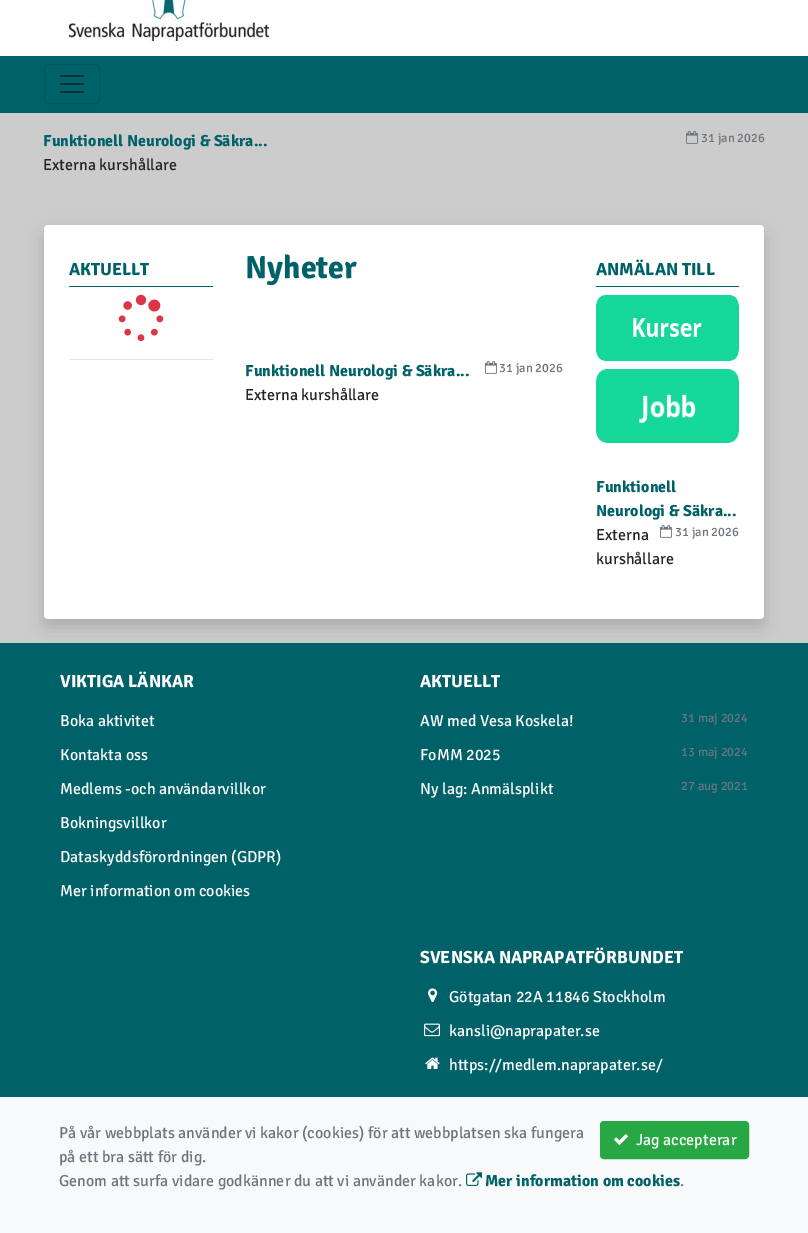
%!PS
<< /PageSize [808 1233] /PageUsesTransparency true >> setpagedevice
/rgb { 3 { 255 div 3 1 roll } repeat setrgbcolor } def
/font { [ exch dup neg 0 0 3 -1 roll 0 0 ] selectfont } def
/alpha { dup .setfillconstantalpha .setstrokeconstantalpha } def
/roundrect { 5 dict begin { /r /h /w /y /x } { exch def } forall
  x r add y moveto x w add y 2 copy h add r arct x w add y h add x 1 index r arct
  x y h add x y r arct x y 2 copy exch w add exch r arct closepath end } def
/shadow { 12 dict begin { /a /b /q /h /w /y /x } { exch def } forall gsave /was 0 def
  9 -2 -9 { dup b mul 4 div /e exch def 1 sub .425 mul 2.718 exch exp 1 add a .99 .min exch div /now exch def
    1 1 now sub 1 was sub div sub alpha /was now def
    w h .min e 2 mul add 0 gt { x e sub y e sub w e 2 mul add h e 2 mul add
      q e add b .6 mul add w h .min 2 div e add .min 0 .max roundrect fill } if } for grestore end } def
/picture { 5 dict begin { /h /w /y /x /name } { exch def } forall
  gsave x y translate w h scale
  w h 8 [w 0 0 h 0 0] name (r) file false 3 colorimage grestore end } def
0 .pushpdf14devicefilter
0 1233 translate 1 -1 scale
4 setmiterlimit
204 204 204 rgb
0 0 808 1233 rectfill
255 255 255 rgb
0 0 808 56 rectfill
(img/1.rgb) 69 0 200 41 picture
0 97 104 rgb
0 56 808 57 rectfill
0 87 94 rgb
44.5 64.5 55 39 3.5 roundrect stroke
(img/2.rgb) 60 75 24 18 picture
(img/3.rgb) 686 131 12 13 picture
0 0 0 rgb
44 233 720 394 4 8 0.15 shadow
255 255 255 rgb
44 225 720 394 4 roundrect fill
0 97 104 rgb
69 286 144 1 rectfill
(img/4.rgb) 118 294 46 48 picture
230 230 230 rgb
69 359 144 1 rectfill
(img/5.rgb) 485 361 12 13 picture
0 97 104 rgb
596 286 143 1 rectfill
(img/6.rgb) 596 295 143 66 picture
(img/7.rgb) 596 369 143 74 picture
(img/5.rgb) 660 525 12 13 picture
0 643 808 454 rectfill
(img/8.rgb) 428 988 10 15 picture
(img/9.rgb) 424 1023 16 14 picture
(img/10.rgb) 425 1057 15 12 picture
248 249 250 rgb
0 1097 808 136 rectfill
(img/11.rgb) 466 1172 16 14 picture
40 167 69 rgb
600.5 1121.5 148 37 3.5 roundrect gsave fill grestore
stroke
(img/12.rgb) 614 1134 14 11 picture
/Signika-Bold 16 font
0 97 104 rgb
43 146 moveto (Funktionell Neurologi & Säkra...) show
/Signika-Regular 12.75 font
108 117 125 rgb
701 142 moveto (31 jan 2026) show
/Signika-Regular 16 font
33 37 41 rgb
43 170 moveto (Externa kurshållare) show
/Signika-Bold 17.6 font
0 97 104 rgb
69 275 moveto (AKTUELLT) show
/Signika-Bold 32 font
245 278 moveto (Nyheter) show
/Signika-Bold 16 font
245 376 moveto (Funktionell Neurologi & Säkra...) show
/Signika-Regular 12.75 font
108 117 125 rgb
499 372 moveto (31 jan 2026) show
/Signika-Regular 16 font
33 37 41 rgb
245 400 moveto (Externa kurshållare) show
/Signika-Bold 17.6 font
0 97 104 rgb
596 275 moveto (ANMÄLAN TILL) show
/Signika-Bold 16 font
596 492 moveto (Funktionell) show
596 516 moveto (Neurologi & Säkra...) show
/Signika-Regular 16 font
33 37 41 rgb
596 540 moveto (Externa) show
/Signika-Regular 12.75 font
108 117 125 rgb
675 536 moveto (31 jan 2026) show
/Signika-Regular 16 font
33 37 41 rgb
596 564 moveto (kurshållare) show
/Signika-Bold 17.6 font
255 255 255 rgb
60 687 moveto (VIKTIGA LÄNKAR) show
/Signika-Regular 16 font
[
  [(Boka aktivitet) 60 726]
  [(Kontakta oss) 60 760]
  [(Medlems -och användarvillkor) 60 794]
  [(Bokningsvillkor) 60 828]
  [(Dataskyddsförordningen \(GDPR\)) 60 862]
  [(Mer information om cookies) 60 896]
] { aload pop moveto show } forall
/Signika-Bold 17.6 font
420 687 moveto (AKTUELLT) show
/Signika-Regular 16 font
420 726 moveto (AW med Vesa Koskela!) show
/Signika-Regular 12.75 font
108 117 125 rgb
681 722 moveto (31 maj 2024) show
/Signika-Regular 16 font
255 255 255 rgb
420 760 moveto (FoMM 2025) show
/Signika-Regular 12.75 font
108 117 125 rgb
681 756 moveto (13 maj 2024) show
/Signika-Regular 16 font
255 255 255 rgb
420 794 moveto (Ny lag: Anmälsplikt) show
/Signika-Regular 12.75 font
108 117 125 rgb
681 790 moveto (27 aug 2021) show
/Signika-Bold 17.6 font
255 255 255 rgb
420 963 moveto (SVENSKA NAPRAPATFÖRBUNDET) show
/Signika-Regular 16 font
[
  [(Götgatan 22A 11846 Stockholm) 449 1002]
  [(kansli@naprapater.se) 449 1036]
  [(https://medlem.naprapater.se/) 449 1070]
] { aload pop moveto show } forall
108 117 125 rgb
[
  [(På vår webbplats använder vi kakor \(cookies\) för att webbplatsen ska fungera) 59 1138]
  [(på ett bra sätt för dig.) 59 1162]
  [(Genom att surfa vidare godkänner du att vi använder kakor.) 59 1186]
] { aload pop moveto show } forall
/Signika-Bold 16 font
0 97 104 rgb
485 1186 moveto (Mer information om cookies) show
/Signika-Regular 16 font
108 117 125 rgb
680 1186 moveto (.) show
255 255 255 rgb
636 1145 moveto (Jag accepterar) show
.poppdf14devicefilter showpage
